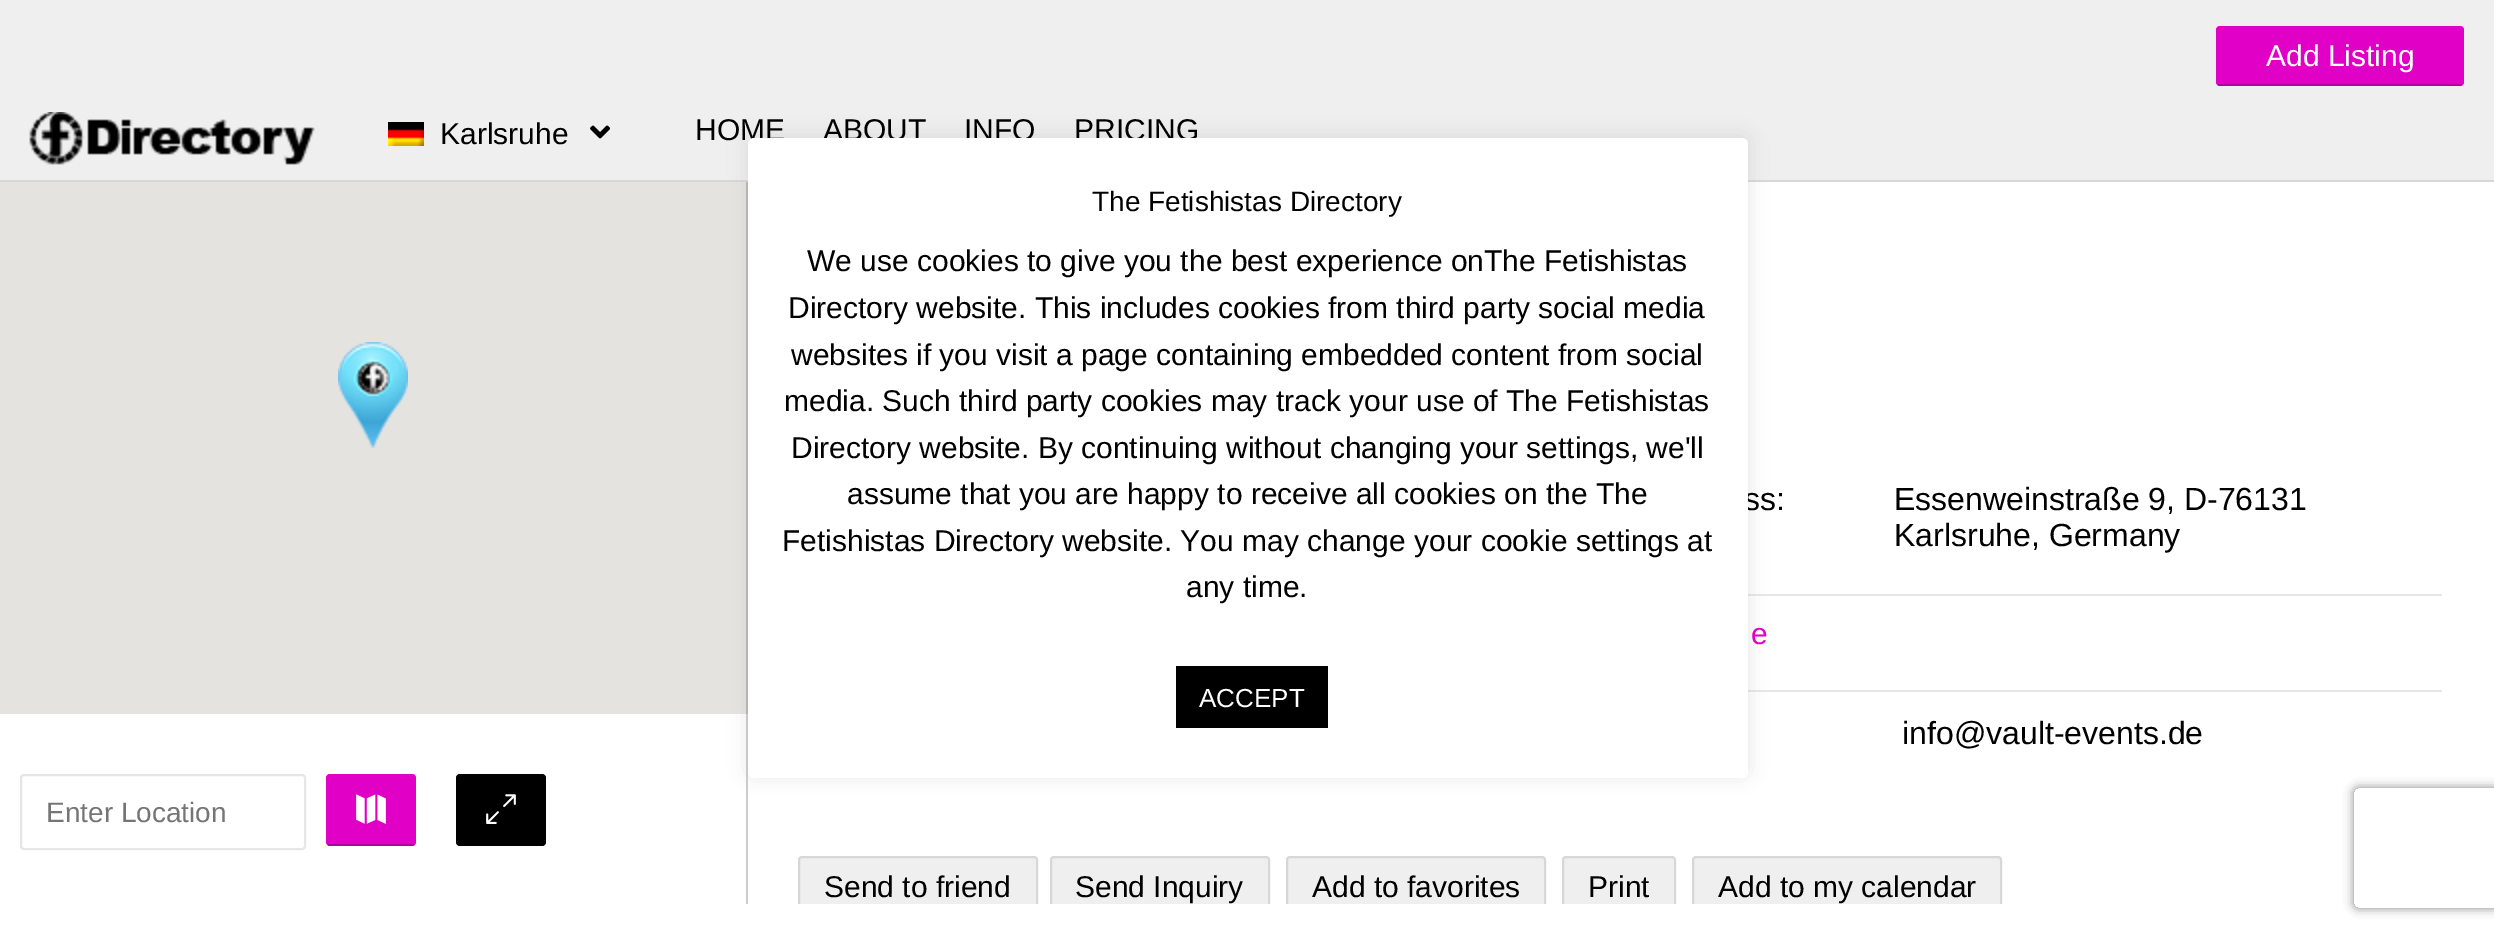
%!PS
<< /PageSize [2494 935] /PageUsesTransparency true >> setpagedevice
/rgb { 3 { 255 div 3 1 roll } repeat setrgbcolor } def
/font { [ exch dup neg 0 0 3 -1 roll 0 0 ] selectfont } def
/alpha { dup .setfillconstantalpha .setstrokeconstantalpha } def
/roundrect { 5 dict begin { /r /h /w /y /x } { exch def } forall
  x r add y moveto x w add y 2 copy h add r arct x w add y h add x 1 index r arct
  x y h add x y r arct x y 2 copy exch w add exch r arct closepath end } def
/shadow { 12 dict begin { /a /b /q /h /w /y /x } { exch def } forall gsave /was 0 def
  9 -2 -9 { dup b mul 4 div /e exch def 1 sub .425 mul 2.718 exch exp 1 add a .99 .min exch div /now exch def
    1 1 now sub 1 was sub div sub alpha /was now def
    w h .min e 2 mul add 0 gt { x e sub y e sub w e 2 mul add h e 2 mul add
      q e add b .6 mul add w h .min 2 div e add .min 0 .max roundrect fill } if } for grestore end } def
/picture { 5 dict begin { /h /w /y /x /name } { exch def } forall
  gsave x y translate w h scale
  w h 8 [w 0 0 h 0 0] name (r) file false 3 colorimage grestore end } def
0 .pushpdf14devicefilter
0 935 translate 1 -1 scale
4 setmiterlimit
255 255 255 rgb
0 0 2494 935 rectfill
[
  [746 714 2 190 204 204 204]
  [0 0 2494 180 239 239 239]
  [0 180 2494 2 215 215 215]
] { aload pop rgb rectfill } forall
224 0 198 rgb
2216 26 248 60 4 roundrect fill
0.2 alpha
0 0 0 rgb
2218 84 244 2 rectfill
1 alpha
(img/1.rgb) 29 112 286 53 picture
(img/2.rgb) 388 122 36 24 picture
(img/3.rgb) 590 125 20 14 picture
229 227 223 rgb
0 182 746 532 rectfill
183 182 178 rgb
746 182 2 532 rectfill
(img/4.rgb) 338 342 70 106 picture
230 230 230 rgb
2 setlinewidth
21 775 284 74 3 roundrect stroke
224 0 198 rgb
326 774 90 72 4 roundrect fill
0.2 alpha
0 0 0 rgb
328 844 86 2 rectfill
1 alpha
(img/5.rgb) 356 794 30 30 picture
456 774 90 72 4 roundrect fill
0.2 alpha
458 845 86 1 rectfill
1 alpha
(img/6.rgb) 486 794 30 30 picture
230 230 230 rgb
1748 594 694 2 rectfill
1748 690 694 2 rectfill
239 239 239 rgb
802 856 moveto 1034 856 lineto 1036 856 1038 858 1038 860 curveto 1038 904 lineto 798 904 lineto 798 860 lineto 798 858 800 856 802 856 curveto closepath fill
gsave
748 182 1746 722 rectclip
0.1 alpha
0 0 0 rgb
799 857 238 60 3 roundrect stroke
grestore
1054 856 moveto 1266 856 lineto 1268 856 1270 858 1270 860 curveto 1270 904 lineto 1050 904 lineto 1050 860 lineto 1050 858 1052 856 1054 856 curveto closepath fill
gsave
748 182 1746 722 rectclip
0.1 alpha
0 0 0 rgb
1051 857 218 60 3 roundrect stroke
grestore
1290 856 moveto 1542 856 lineto 1544 856 1546 858 1546 860 curveto 1546 904 lineto 1286 904 lineto 1286 860 lineto 1286 858 1288 856 1290 856 curveto closepath fill
gsave
748 182 1746 722 rectclip
0.1 alpha
0 0 0 rgb
1287 857 258 60 3 roundrect stroke
grestore
1566 856 moveto 1672 856 lineto 1674 856 1676 858 1676 860 curveto 1676 904 lineto 1562 904 lineto 1562 860 lineto 1562 858 1564 856 1566 856 curveto closepath fill
gsave
748 182 1746 722 rectclip
0.1 alpha
0 0 0 rgb
1563 857 112 60 3 roundrect stroke
grestore
1696 856 moveto 1998 856 lineto 2000 856 2002 858 2002 860 curveto 2002 904 lineto 1692 904 lineto 1692 860 lineto 1692 858 1694 856 1696 856 curveto closepath fill
gsave
748 182 1746 722 rectclip
0.1 alpha
0 0 0 rgb
1693 857 308 60 3 roundrect stroke
grestore
172 171 171 rgb
748 136 1000 640 6 10 0.3 shadow
gsave
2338 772 moveto 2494 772 lineto 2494 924 lineto 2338 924 lineto closepath 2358 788 moveto 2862 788 lineto 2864 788 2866 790 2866 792 curveto 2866 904 lineto 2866 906 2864 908 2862 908 curveto 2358 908 lineto 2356 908 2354 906 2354 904 curveto 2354 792 lineto 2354 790 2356 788 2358 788 curveto closepath eoclip newpath
128 128 128 rgb
2354 788 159 120 4 5 1 shadow
grestore
/Arimo-Regular 30 font
255 255 255 rgb
2266 66 moveto (Add Listing) show
0 0 0 rgb
[
  [(Karlsruhe) 440 144]
  [(HOME) 695 140]
  [(ABOUT) 823 140]
  [(INFO) 964 140]
  [(PRICING) 1074 140]
] { aload pop moveto show } forall
/LiberationSans-Regular 28 font
117 117 117 rgb
46 822 moveto (Enter Location) show
/Arimo-Regular 32 font
0 0 0 rgb
[
  [(ss:) 1744 510]
  [(Essenweinstraße 9, D-76131) 1894 510]
  [(Karlsruhe, Germany) 1894 546]
] { aload pop moveto show } forall
/Arimo-Regular 30 font
224 0 198 rgb
1751 644 moveto (e) show
/Arimo-Regular 32 font
0 0 0 rgb
1902 744 moveto (info@vault-events.de) show
/Arimo-Regular 30 font
[
  [(Send to friend) 824 897]
  [(Send Inquiry) 1075 897]
  [(Add to favorites) 1312 897]
  [(Print) 1588 897]
  [(Add to my calendar) 1718 897]
] { aload pop moveto show } forall
255 255 255 rgb
748 138 1000 640 6 roundrect fill
/Arimo-Regular 28 font
0 0 0 rgb
1092 211 moveto (The Fetishistas Directory) show
/Arimo-Regular 30 font
[
  [(We use cookies to give you the best experience onThe Fetishistas) 807 271]
  [(Directory website. This includes cookies from third party social media) 788 318]
  [(websites if you visit a page containing embedded content from social) 791 365]
  [(media. Such third party cookies may track your use of The Fetishistas) 784 411]
  [(Directory website. By continuing without changing your settings, we'll) 791 458]
  [(assume that you are happy to receive all cookies on the The) 847 504]
  [(Fetishistas Directory website. You may change your cookie settings at) 782 551]
  [(any time.) 1186 597]
] { aload pop moveto show } forall
1176 666 152 62 rectfill
/Arimo-Regular 26 font
255 255 255 rgb
1199 707 moveto (ACCEPT) show
.poppdf14devicefilter showpage
